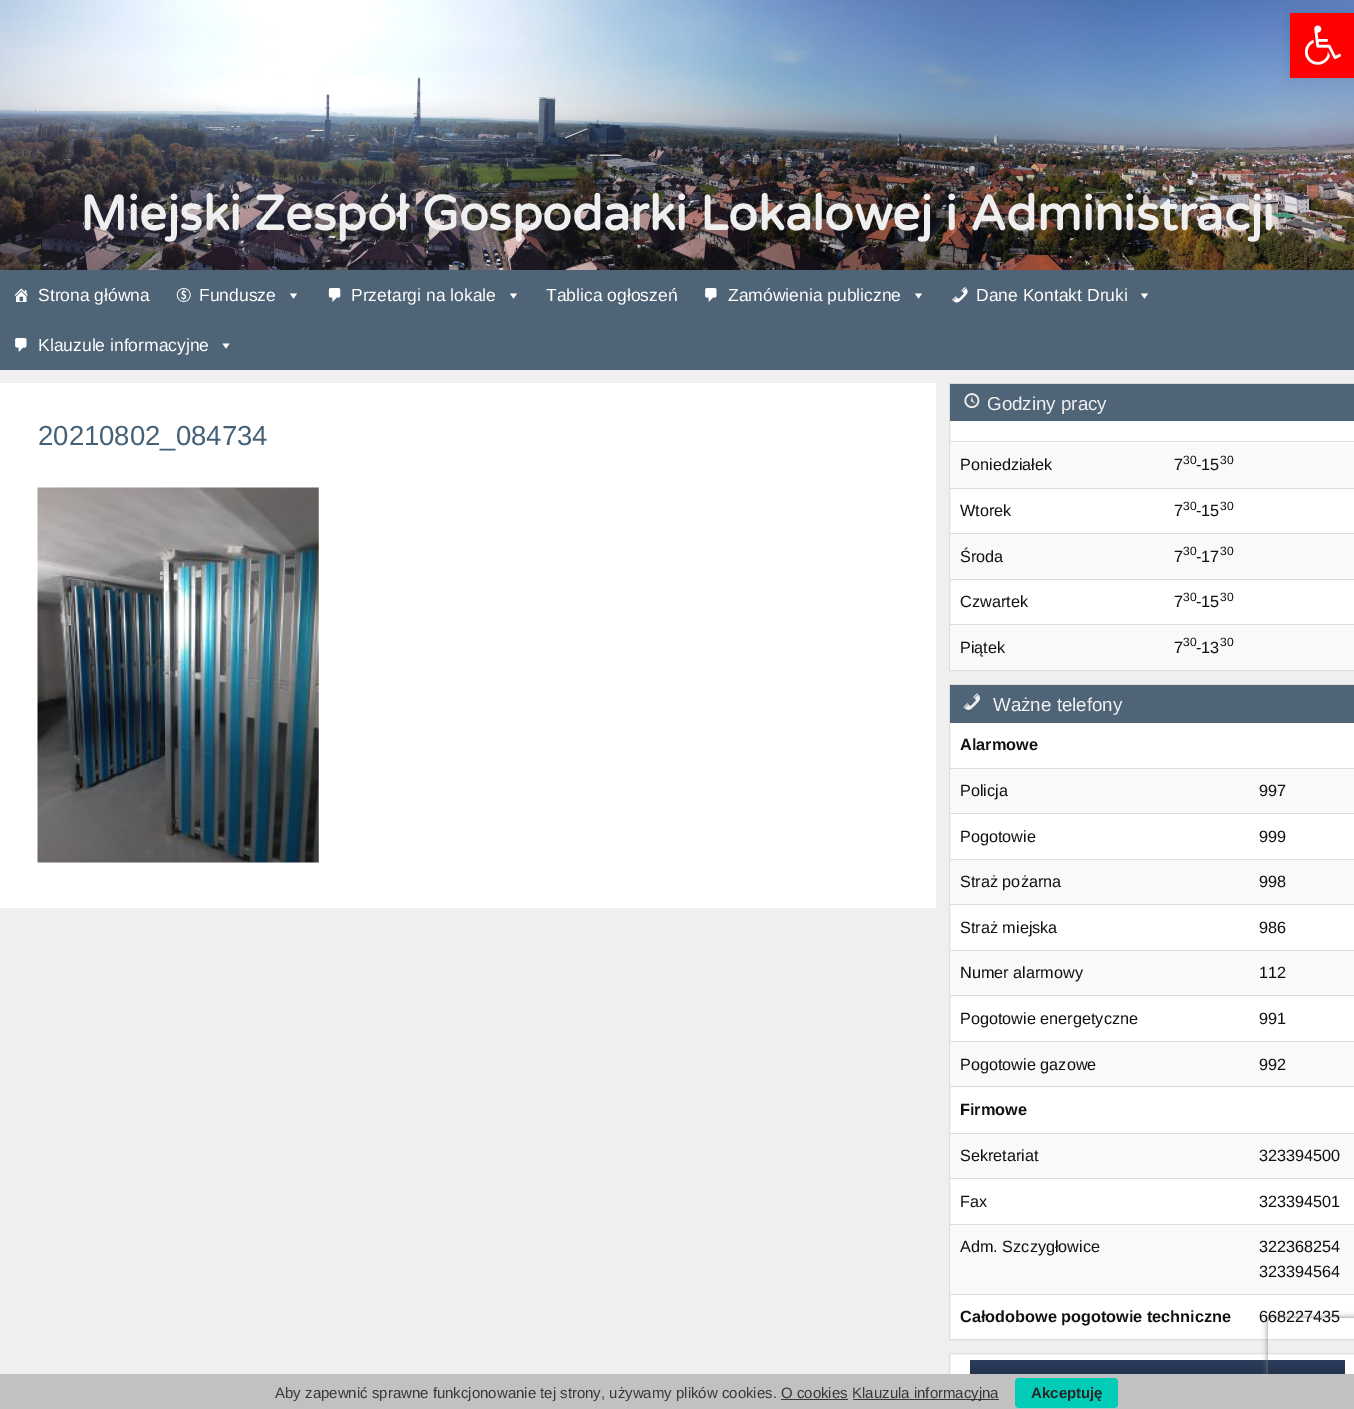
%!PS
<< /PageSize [1354 1409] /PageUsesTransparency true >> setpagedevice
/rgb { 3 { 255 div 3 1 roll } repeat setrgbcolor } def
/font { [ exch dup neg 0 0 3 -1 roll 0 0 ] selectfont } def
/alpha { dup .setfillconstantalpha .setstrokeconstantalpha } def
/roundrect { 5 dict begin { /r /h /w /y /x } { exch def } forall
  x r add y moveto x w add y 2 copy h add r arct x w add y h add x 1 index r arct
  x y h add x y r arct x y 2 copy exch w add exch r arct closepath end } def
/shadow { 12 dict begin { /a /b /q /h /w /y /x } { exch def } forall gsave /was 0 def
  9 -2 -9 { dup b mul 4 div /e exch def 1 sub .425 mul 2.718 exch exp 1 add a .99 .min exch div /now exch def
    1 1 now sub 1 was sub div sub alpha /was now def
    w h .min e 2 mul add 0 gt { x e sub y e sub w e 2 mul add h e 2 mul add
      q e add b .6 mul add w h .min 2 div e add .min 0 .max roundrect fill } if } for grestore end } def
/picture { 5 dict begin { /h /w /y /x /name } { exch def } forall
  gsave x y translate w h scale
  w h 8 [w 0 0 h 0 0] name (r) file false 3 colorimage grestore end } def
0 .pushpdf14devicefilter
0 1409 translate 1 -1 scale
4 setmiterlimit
239 239 239 rgb
0 0 1354 1409 rectfill
(img/2.rgb) 0 0 1354 270 picture
0 0 0 rgb
1290 13 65 65 0 6 0.1 shadow
255 0 0 rgb
1290 13 64 65 rectfill
(img/1.rgb) 1304 25 38 40 picture
79 101 119 rgb
0 270 1354 100 rectfill
(img/3.rgb) 14 288 14 14 picture
(img/4.rgb) 176 288 15 14 picture
255 255 255 rgb
297 293.5 moveto 293.5 298.5 lineto 290 293.5 lineto closepath fill
(img/5.rgb) 328 288 13 14 picture
517 293.5 moveto 513.5 298.5 lineto 510 293.5 lineto closepath fill
(img/6.rgb) 705 288 12 14 picture
922 293.5 moveto 918.5 298.5 lineto 915 293.5 lineto closepath fill
(img/7.rgb) 952 287 16 16 picture
1148 293.5 moveto 1144.5 298.5 lineto 1141 293.5 lineto closepath fill
(img/6.rgb) 15 338 12 14 picture
229.5 343.5 moveto 226 348.5 lineto 222.5 343.5 lineto closepath fill
0 383 936 525 rectfill
(img/8.rgb) 37 487 282 376 picture
950 421 404 203 rectfill
221 221 221 rgb
949.5 383.5 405 287 rectstroke
79 101 119 rgb
950 384 404 37 rectfill
(img/9.rgb) 964 393 16 16 picture
[
  [949 441 405 1 221 221 221]
  [950 443 404 45 249 249 249]
  [949 488 405 1 221 221 221]
  [949 533 405 1 221 221 221]
  [950 534 404 45 249 249 249]
  [949 579 405 1 221 221 221]
  [949 624 405 1 221 221 221]
  [950 625 404 45 249 249 249]
  [950 723 404 616 255 255 255]
] { aload pop rgb rectfill } forall
221 221 221 rgb
949.5 684.5 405 655 rectstroke
79 101 119 rgb
950 685 404 38 rectfill
(img/10.rgb) 963 693 18 17 picture
[
  [950 769 404 44 249 249 249]
  [949 768 405 1 221 221 221]
  [949 813 405 1 221 221 221]
  [950 860 404 44 249 249 249]
  [949 859 405 1 221 221 221]
  [949 904 405 1 221 221 221]
  [950 951 404 44 249 249 249]
  [949 950 405 1 221 221 221]
  [949 995 405 1 221 221 221]
  [950 1042 404 46 249 249 249]
  [949 1041 405 1 221 221 221]
  [949 1086 405 1 221 221 221]
  [950 1134 404 44 249 249 249]
  [949 1133 405 1 221 221 221]
  [949 1178 405 1 221 221 221]
  [950 1225 404 69 249 249 249]
  [949 1224 405 1 221 221 221]
  [949 1294 405 1 221 221 221]
  [950 1354 404 20 255 255 255]
] { aload pop rgb rectfill } forall
221 221 221 rgb
949.5 1353.5 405 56 rectstroke
(img/11.rgb) 970 1360 375 14 picture
gsave
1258 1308 moveto 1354 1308 lineto 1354 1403 lineto 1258 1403 lineto closepath 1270.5 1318 moveto 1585.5 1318 lineto 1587 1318 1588 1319 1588 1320.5 curveto 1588 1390.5 lineto 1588 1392 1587 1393 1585.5 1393 curveto 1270.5 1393 lineto 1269 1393 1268 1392 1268 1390.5 curveto 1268 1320.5 lineto 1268 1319 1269 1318 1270.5 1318 curveto closepath eoclip newpath
128 128 128 rgb
1268 1318 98 75 2.5 3 1 shadow
grestore
193 193 193 rgb
0 1374 1354 35 rectfill
56 56 56 rgb
853 1399 146 1 rectfill
0 204 183 rgb
1015 1378 103 30 4 roundrect fill
56 56 56 rgb
781 1399 67 1 rectfill
/VarelaRound-Bold 48.75 font
239 239 239 rgb
80 230 moveto (Miejski Zespół Gospodarki Lokalowej i Administracji) show
/LiberationSans-Regular 17.5 font
255 255 255 rgb
[
  [(Strona główna) 38 301]
  [(Fundusze) 199 301]
  [(Przetargi na lokale) 351 301]
  [(Tablica ogłoszeń) 546 301]
  [(Zamówienia publiczne) 728 301]
  [(Dane Kontakt Druki) 976 301]
  [(Klauzule informacyjne) 38 351]
] { aload pop moveto show } forall
/LiberationSans-Regular 27.5 font
68 97 119 rgb
38 445 moveto (20210802_084734) show
/LiberationSans-Regular 18.75 font
239 239 239 rgb
987 410 moveto (Godziny pracy) show
/LiberationSans-Regular 16.25 font
17 17 17 rgb
960 470 moveto (Poniedziałek) show
1174 470 moveto (7) show
/LiberationSans-Regular 12 font
1183 464 moveto (30) show
/LiberationSans-Regular 16.25 font
1196 470 moveto (-15) show
/LiberationSans-Regular 12 font
1220 464 moveto (30) show
/LiberationSans-Regular 16.25 font
960 516 moveto (Wtorek) show
1174 516 moveto (7) show
/LiberationSans-Regular 12 font
1183 510 moveto (30) show
/LiberationSans-Regular 16.25 font
1196 516 moveto (-15) show
/LiberationSans-Regular 12 font
1220 510 moveto (30) show
/LiberationSans-Regular 16.25 font
960 562 moveto (Środa) show
1174 562 moveto (7) show
/LiberationSans-Regular 12 font
1183 555 moveto (30) show
/LiberationSans-Regular 16.25 font
1196 562 moveto (-17) show
/LiberationSans-Regular 12 font
1220 555 moveto (30) show
/LiberationSans-Regular 16.25 font
960 607 moveto (Czwartek) show
1174 607 moveto (7) show
/LiberationSans-Regular 12 font
1183 601 moveto (30) show
/LiberationSans-Regular 16.25 font
1196 607 moveto (-15) show
/LiberationSans-Regular 12 font
1220 601 moveto (30) show
/LiberationSans-Regular 16.25 font
960 653 moveto (Piątek) show
1174 653 moveto (7) show
/LiberationSans-Regular 12 font
1183 646 moveto (30) show
/LiberationSans-Regular 16.25 font
1196 653 moveto (-13) show
/LiberationSans-Regular 12 font
1220 646 moveto (30) show
/LiberationSans-Regular 18.75 font
239 239 239 rgb
993 711 moveto (Ważne telefony) show
/LiberationSans-Bold 16.25 font
17 17 17 rgb
960 750 moveto (Alarmowe) show
/LiberationSans-Regular 16.25 font
[
  [(Policja) 960 796]
  [(997) 1259 796]
  [(Pogotowie) 960 842]
  [(999) 1259 842]
  [(Straż pożarna) 960 887]
  [(998) 1259 887]
  [(Straż miejska) 960 933]
  [(986) 1259 933]
  [(Numer alarmowy) 960 978]
  [(112) 1259 978]
  [(Pogotowie energetyczne) 960 1024]
  [(991) 1259 1024]
  [(Pogotowie gazowe) 960 1070]
  [(992) 1259 1070]
] { aload pop moveto show } forall
/LiberationSans-Bold 16.25 font
960 1115 moveto (Firmowe) show
/LiberationSans-Regular 16.25 font
[
  [(Sekretariat) 960 1161]
  [(323394500) 1259 1161]
  [(Fax) 960 1207]
  [(323394501) 1259 1207]
  [(Adm. Szczygłowice) 960 1252]
  [(322368254) 1259 1252]
  [(323394564) 1259 1277]
] { aload pop moveto show } forall
/LiberationSans-Bold 16.25 font
960 1322 moveto (Całodobowe pogotowie techniczne) show
/LiberationSans-Regular 16.25 font
1259 1322 moveto (668227435) show
/LiberationSans-Regular 15 font
56 56 56 rgb
275 1398 moveto (Aby zapewnić sprawne funkcjonowanie tej strony, używamy plików cookies. O cookies) show
852 1398 moveto (Klauzula informacyjna) show
/LiberationSans-Bold 15 font
38 38 38 rgb
1031 1398 moveto (Akceptuję) show
.poppdf14devicefilter showpage
